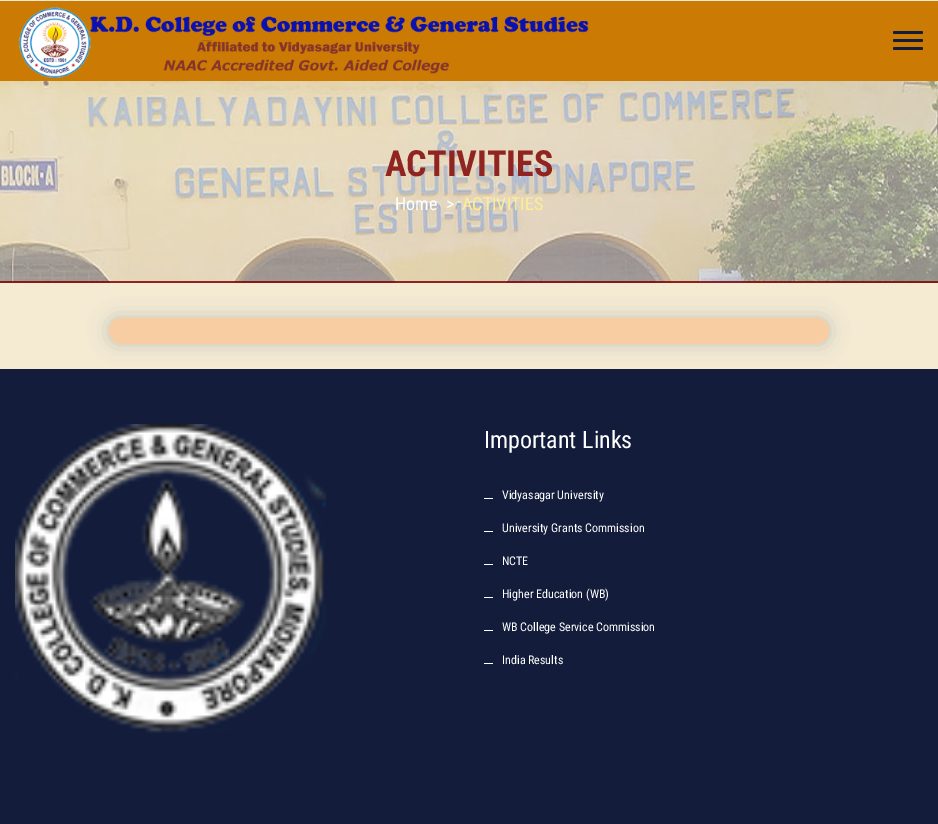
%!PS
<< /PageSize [938 824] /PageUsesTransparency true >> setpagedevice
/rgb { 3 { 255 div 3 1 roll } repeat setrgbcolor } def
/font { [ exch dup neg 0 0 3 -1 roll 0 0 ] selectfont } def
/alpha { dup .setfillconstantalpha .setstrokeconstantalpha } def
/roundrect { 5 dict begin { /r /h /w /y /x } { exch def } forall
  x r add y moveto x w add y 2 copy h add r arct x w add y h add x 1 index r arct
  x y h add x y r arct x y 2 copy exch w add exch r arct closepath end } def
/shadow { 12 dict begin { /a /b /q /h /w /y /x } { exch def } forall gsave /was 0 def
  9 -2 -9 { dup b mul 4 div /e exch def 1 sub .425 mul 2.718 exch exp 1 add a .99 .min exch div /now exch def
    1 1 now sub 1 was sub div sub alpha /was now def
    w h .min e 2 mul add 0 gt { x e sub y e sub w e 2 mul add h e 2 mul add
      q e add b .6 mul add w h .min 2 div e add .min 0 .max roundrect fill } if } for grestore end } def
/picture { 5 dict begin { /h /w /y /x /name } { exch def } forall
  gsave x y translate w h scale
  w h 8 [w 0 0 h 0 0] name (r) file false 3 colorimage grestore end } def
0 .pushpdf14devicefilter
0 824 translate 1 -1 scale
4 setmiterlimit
245 235 211 rgb
0 0 938 824 rectfill
203 123 4 rgb
0 1 938 80 rectfill
19 29 59 rgb
893 39 30 3 1.5 roundrect fill
893 31 30 3 1.5 roundrect fill
893 47 30 3 1.5 roundrect fill
(img/1.rgb) 18 7 571 71 picture
(img/2.rgb) 0 81 938 202 picture
0.83 alpha
128 0 0 rgb
0 281 938 2 rectfill
1 alpha
0 43 92 rgb
109 318 720 26 13 10 0.2 shadow
247 205 161 rgb
109 318 720 26 13 roundrect fill
19 29 59 rgb
0 369 938 455 rectfill
(img/3.rgb) 15 424 311 309 picture
[
  [484 498 9 1 255 255 255]
  [484 531 9 1 255 255 255]
  [484 564 9 1 255 255 255]
  [484 597 9 1 255 255 255]
  [484 630 9 1 255 255 255]
  [484 663 9 1 255 255 255]
] { aload pop rgb rectfill } forall
/RobotoCondensed-Bold 36 font
144 36 33 rgb
385 176 moveto (ACTIVITIES) show
/RobotoCondensed-Regular 18 font
255 255 255 rgb
395 210 moveto (Home) show
446 210 moveto (>) show
255 237 147 rgb
462 210 moveto (ACTIVITIES) show
/RobotoCondensed-Regular 24 font
255 255 255 rgb
484 448 moveto (Important Links) show
/RobotoCondensed-Regular 12 font
[
  [(Vidyasagar University) 502 499]
  [(University Grants Commission) 502 532]
  [(NCTE) 502 565]
  [(Higher Education \(WB\)) 502 598]
  [(WB College Service Commission) 502 631]
  [(India Results) 502 664]
] { aload pop moveto show } forall
.poppdf14devicefilter showpage
